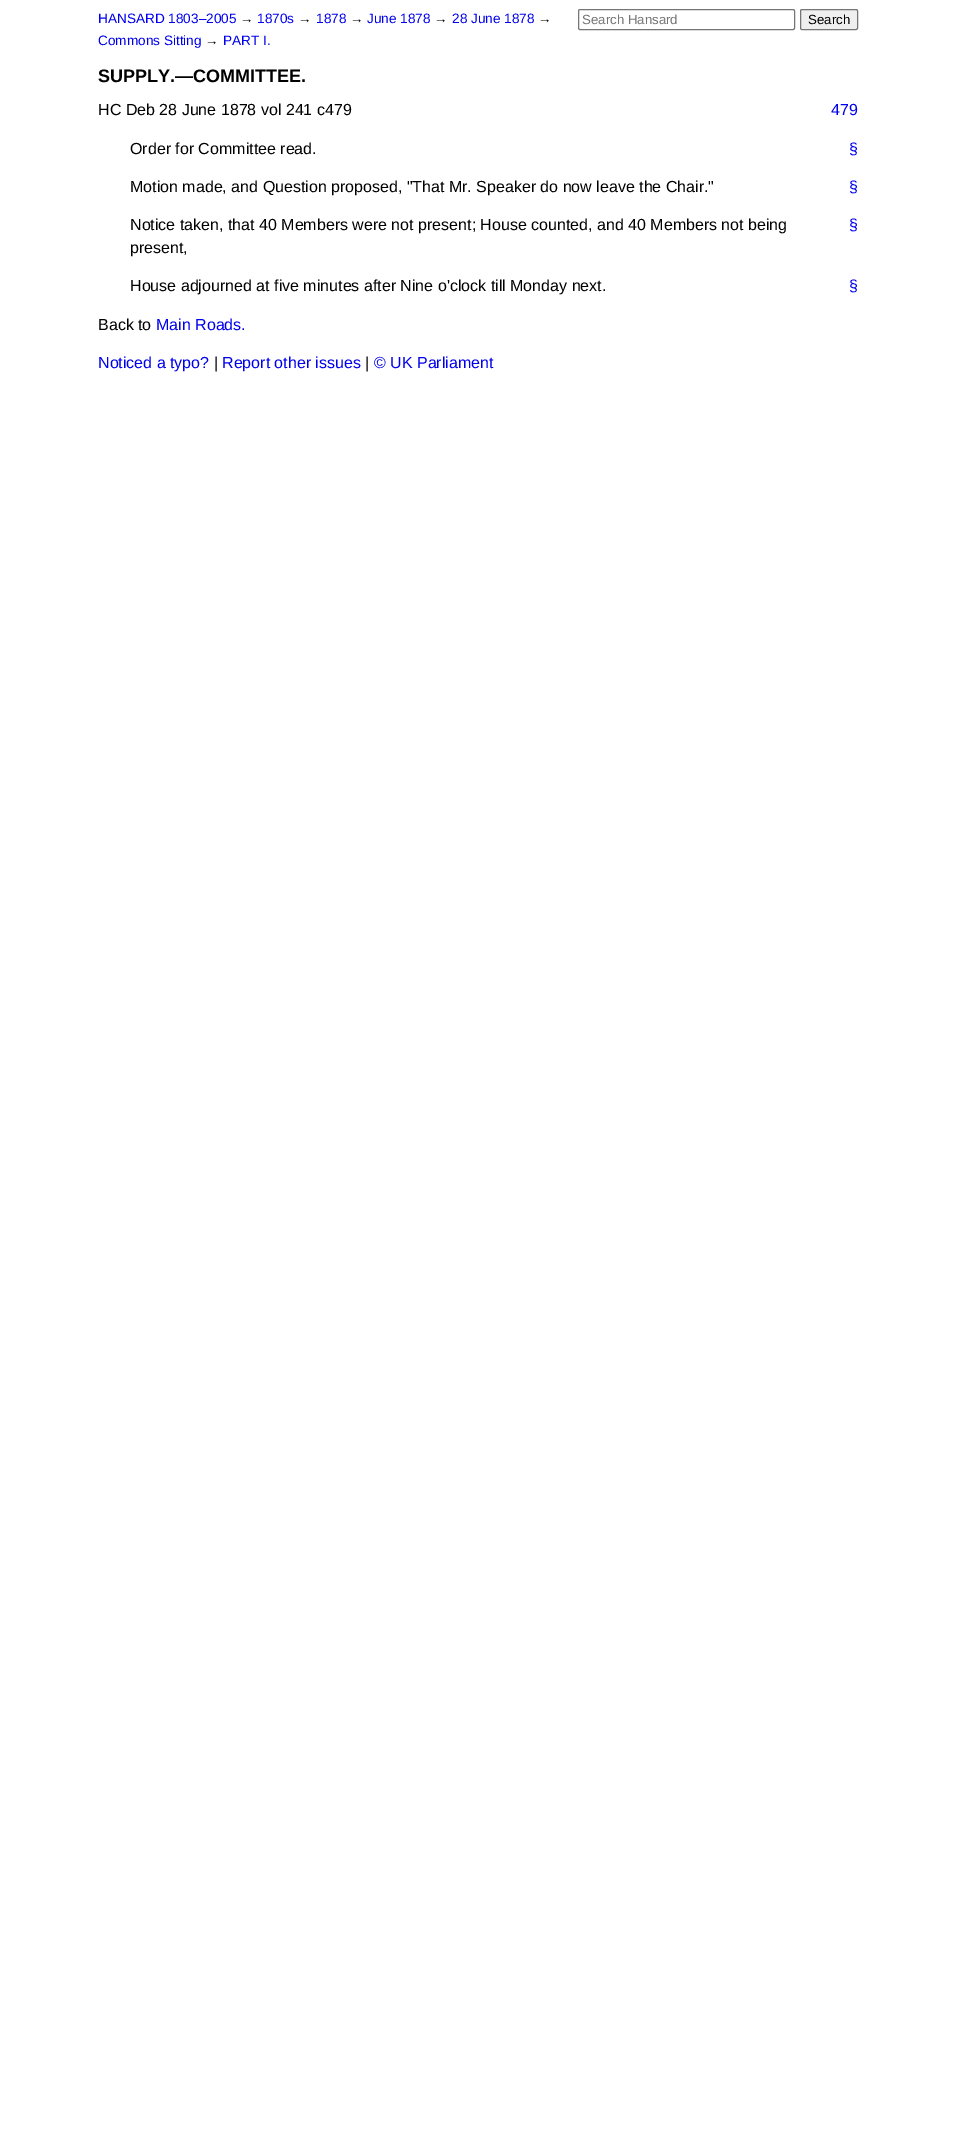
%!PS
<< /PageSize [956 2134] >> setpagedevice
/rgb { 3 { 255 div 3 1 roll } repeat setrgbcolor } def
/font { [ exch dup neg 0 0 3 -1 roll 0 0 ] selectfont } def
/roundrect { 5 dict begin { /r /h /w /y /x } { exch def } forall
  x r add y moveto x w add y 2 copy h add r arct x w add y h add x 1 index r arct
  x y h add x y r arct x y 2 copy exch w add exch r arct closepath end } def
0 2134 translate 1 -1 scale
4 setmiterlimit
255 255 255 rgb
0 0 956 2134 rectfill
118 118 118 rgb
578.5 9.5 216 20 1.5 roundrect stroke
239 239 239 rgb
800.5 9.5 57 20 1.5 roundrect gsave fill grestore
118 118 118 rgb
stroke
/LiberationSans-Regular 13.6 font
0 0 238 rgb
98 23 moveto (HANSARD 1803–2005) show
0 0 0 rgb
240 23 moveto (→) show
0 0 238 rgb
257 23 moveto (1870s) show
0 0 0 rgb
298 23 moveto (→) show
0 0 238 rgb
316 23 moveto (1878) show
0 0 0 rgb
350 23 moveto (→) show
0 0 238 rgb
367 23 moveto (June 1878) show
0 0 0 rgb
434 23 moveto (→) show
0 0 238 rgb
452 23 moveto (28 June 1878) show
0 0 0 rgb
538 23 moveto (→) show
0 0 238 rgb
98 45 moveto (Commons Sitting) show
0 0 0 rgb
205 45 moveto (→) show
0 0 238 rgb
223 45 moveto (PART I.) show
/LiberationSans-Regular 13.25 font
117 117 117 rgb
582 24 moveto (Search Hansard) show
0 0 0 rgb
808 24 moveto (Search) show
/LiberationSans-Bold 18 font
98 82 moveto (SUPPLY.—COMMITTEE.) show
/LiberationSans-Regular 16 font
98 115 moveto (HC Deb 28 June 1878 vol 241 c479) show
0 0 238 rgb
831 115 moveto (479) show
0 0 0 rgb
130 154 moveto (Order for Committee read.) show
0 0 238 rgb
849 154 moveto (§) show
0 0 0 rgb
130 192 moveto (Motion made, and Question proposed, "That Mr. Speaker do now leave the Chair.") show
0 0 238 rgb
849 192 moveto (§) show
0 0 0 rgb
130 230 moveto (Notice taken, that 40 Members were not present; House counted, and 40 Members not being) show
0 0 238 rgb
849 230 moveto (§) show
0 0 0 rgb
130 253 moveto (present,) show
130 291 moveto (House adjourned at five minutes after Nine o'clock till Monday next.) show
0 0 238 rgb
849 291 moveto (§) show
0 0 0 rgb
98 330 moveto (Back to) show
0 0 238 rgb
156 330 moveto (Main Roads.) show
98 368 moveto (Noticed a typo?) show
0 0 0 rgb
214 368 moveto (|) show
0 0 238 rgb
222 368 moveto (Report other issues) show
0 0 0 rgb
365 368 moveto (|) show
0 0 238 rgb
374 368 moveto (© UK Parliament) show
showpage
